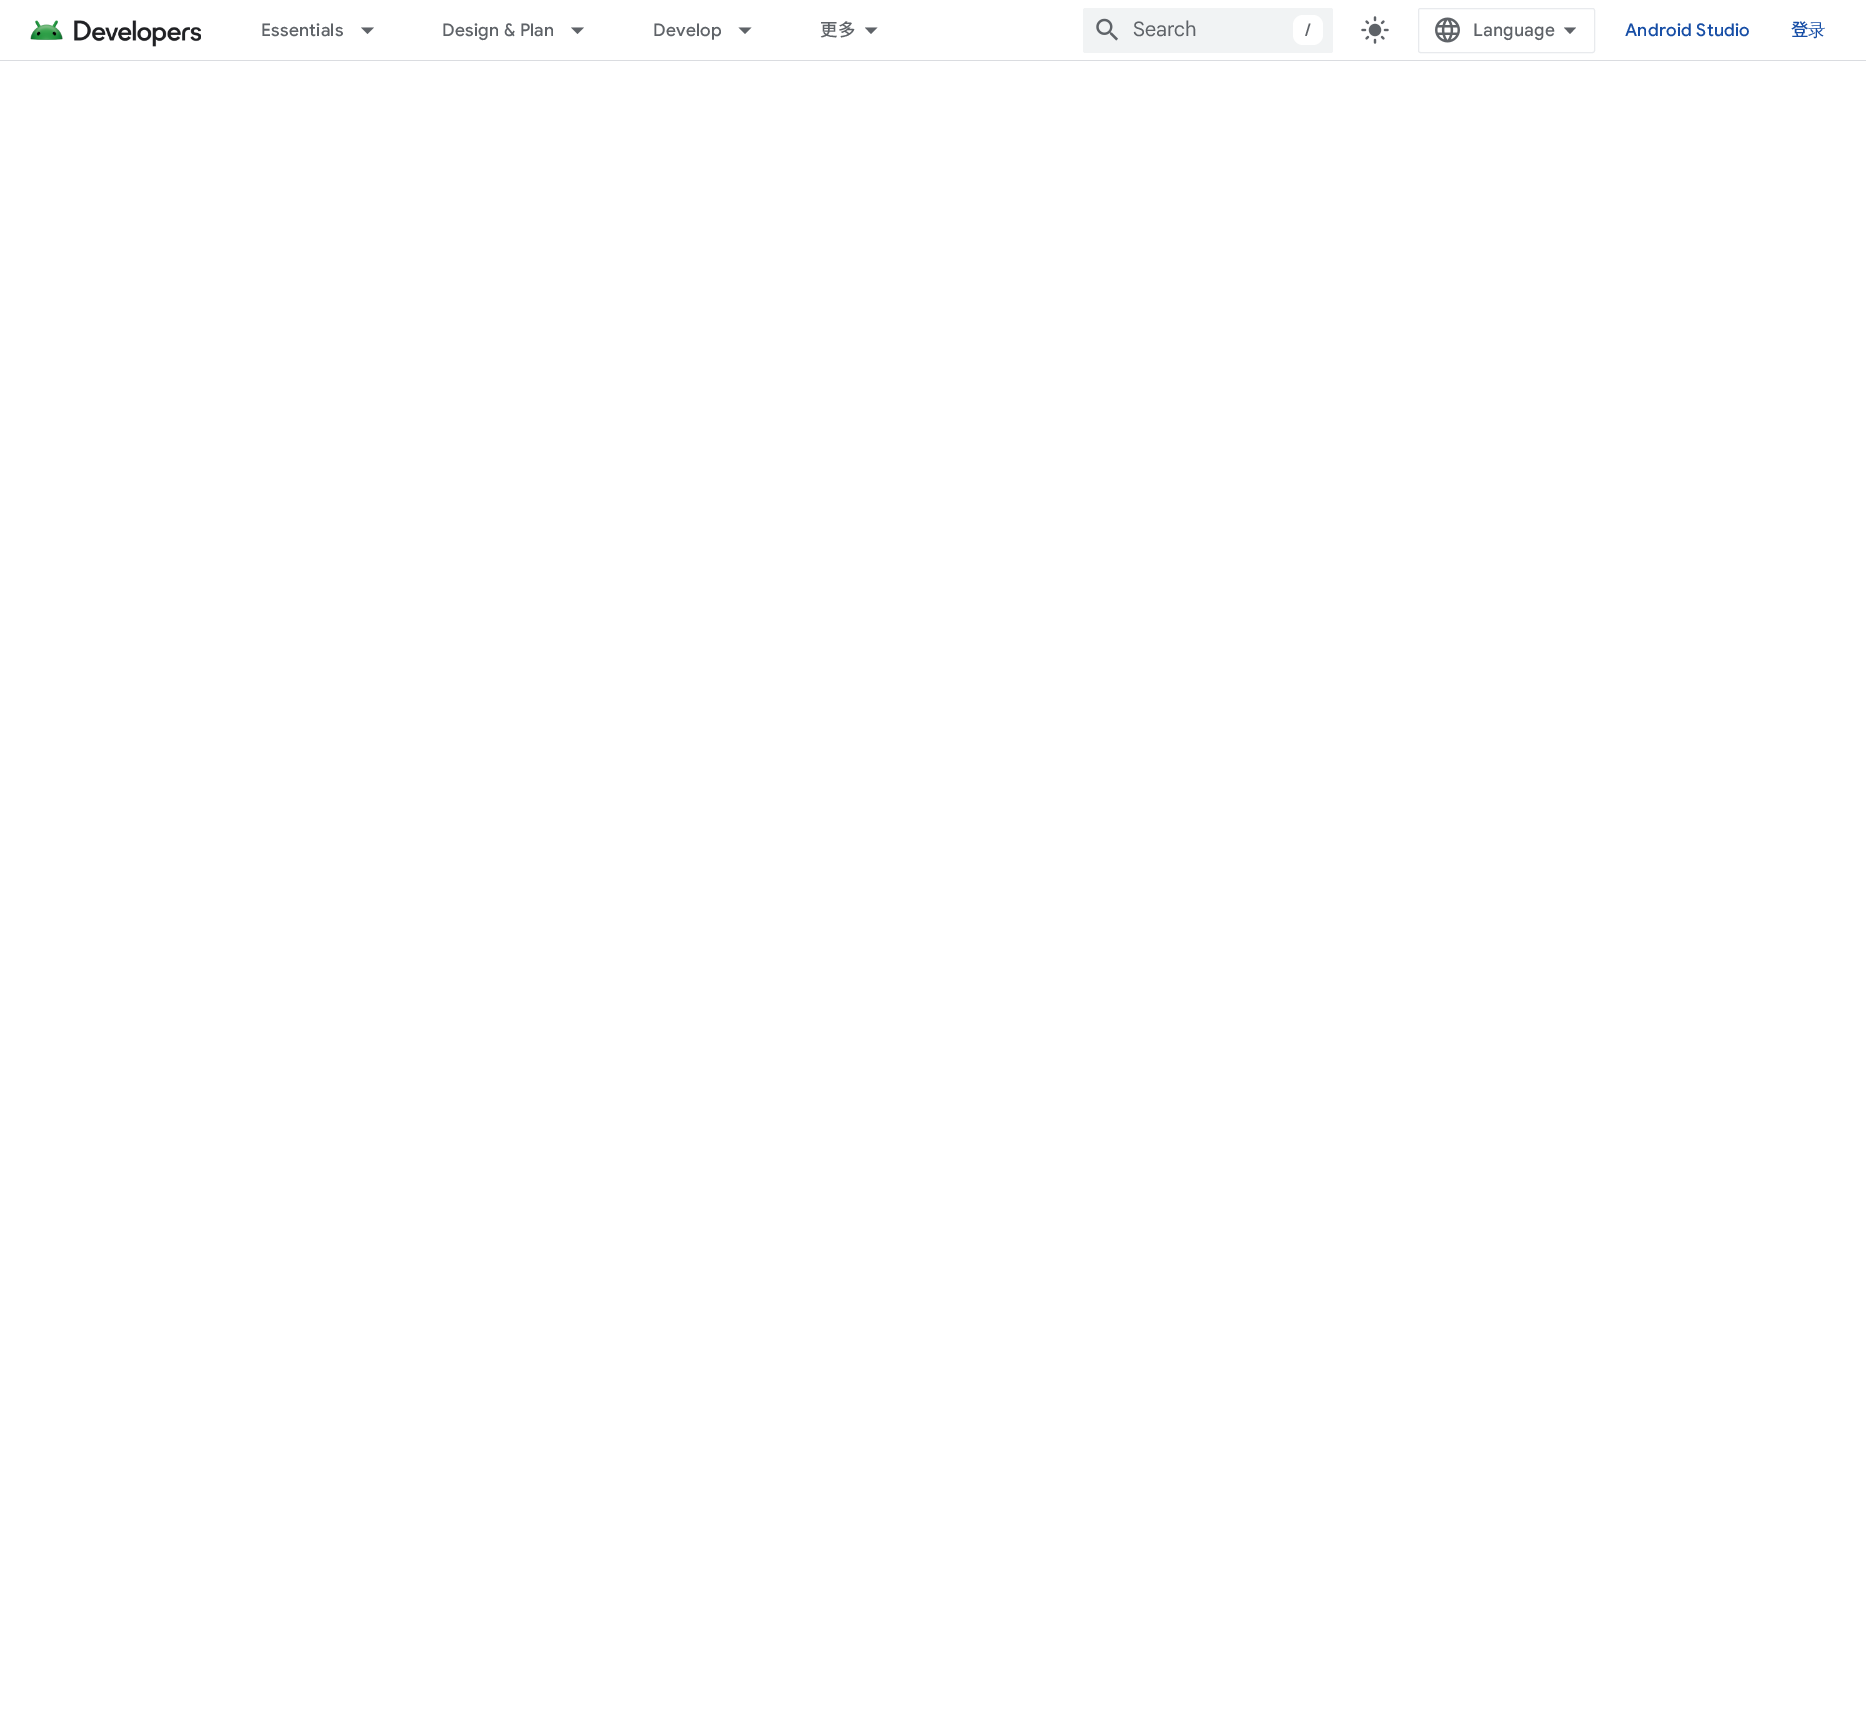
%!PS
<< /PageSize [1866 1718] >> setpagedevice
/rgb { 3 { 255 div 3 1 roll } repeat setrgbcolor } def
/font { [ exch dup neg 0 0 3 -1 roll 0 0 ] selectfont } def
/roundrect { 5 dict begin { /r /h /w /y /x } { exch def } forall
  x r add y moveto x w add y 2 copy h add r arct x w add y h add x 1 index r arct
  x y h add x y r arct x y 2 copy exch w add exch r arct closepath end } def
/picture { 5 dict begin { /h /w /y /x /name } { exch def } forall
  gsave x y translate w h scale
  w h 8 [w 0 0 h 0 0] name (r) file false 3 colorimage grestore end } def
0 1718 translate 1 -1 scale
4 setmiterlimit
255 255 255 rgb
0 0 1866 1718 rectfill
218 220 224 rgb
0 60 1866 1 rectfill
(img/1.rgb) 30 20 171 27 picture
95 99 104 rgb
361 27.5 moveto 374 27.5 lineto 367.5 34 lineto closepath fill
571 27.5 moveto 584 27.5 lineto 577.5 34 lineto closepath fill
738.5 27.5 moveto 751.5 27.5 lineto 745 34 lineto closepath fill
865 27.5 moveto 877.5 27.5 lineto 871 34 lineto closepath fill
241 243 244 rgb
1083 8 250 45 2.5 roundrect fill
(img/2.rgb) 1096 18 22 23 picture
255 255 255 rgb
1293 15 30 30 10 roundrect fill
(img/3.rgb) 1361 16 28 28 picture
232 234 237 rgb
1418.5 8.5 176 44 2 roundrect stroke
(img/4.rgb) 1435 17 25 26 picture
95 99 104 rgb
1570 34 moveto 1564 27.5 lineto 1576 27.5 lineto closepath fill
/GoogleSans-Medium 17.5 font
261 36 moveto 0.25 0 (Essentials) ashow
442 36 moveto 0.25 0 (Design & Plan) ashow
653 36 moveto 0.25 0 (Develop) ashow
/NotoSansJP-Medium 17.5 font
820 36 moveto 0.25 0 (更多) ashow
/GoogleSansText-Regular 20 font
1133 36 moveto (Search) show
/GoogleSans-Medium 17.5 font
1305 36 moveto (/) show
/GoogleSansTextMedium-Medium 17.5 font
1473 36 moveto (Language) show
/GoogleSans-Medium 17.5 font
23 78 166 rgb
1625 36 moveto 0.25 0 (Android Studio) ashow
/NotoSansJP-Medium 17.5 font
1791 36 moveto 0.25 0 (登) ashow
/WenQuanYiZenHei-Medium 17.5 font
1808 36 moveto 0.25 0 (录) ashow
showpage
